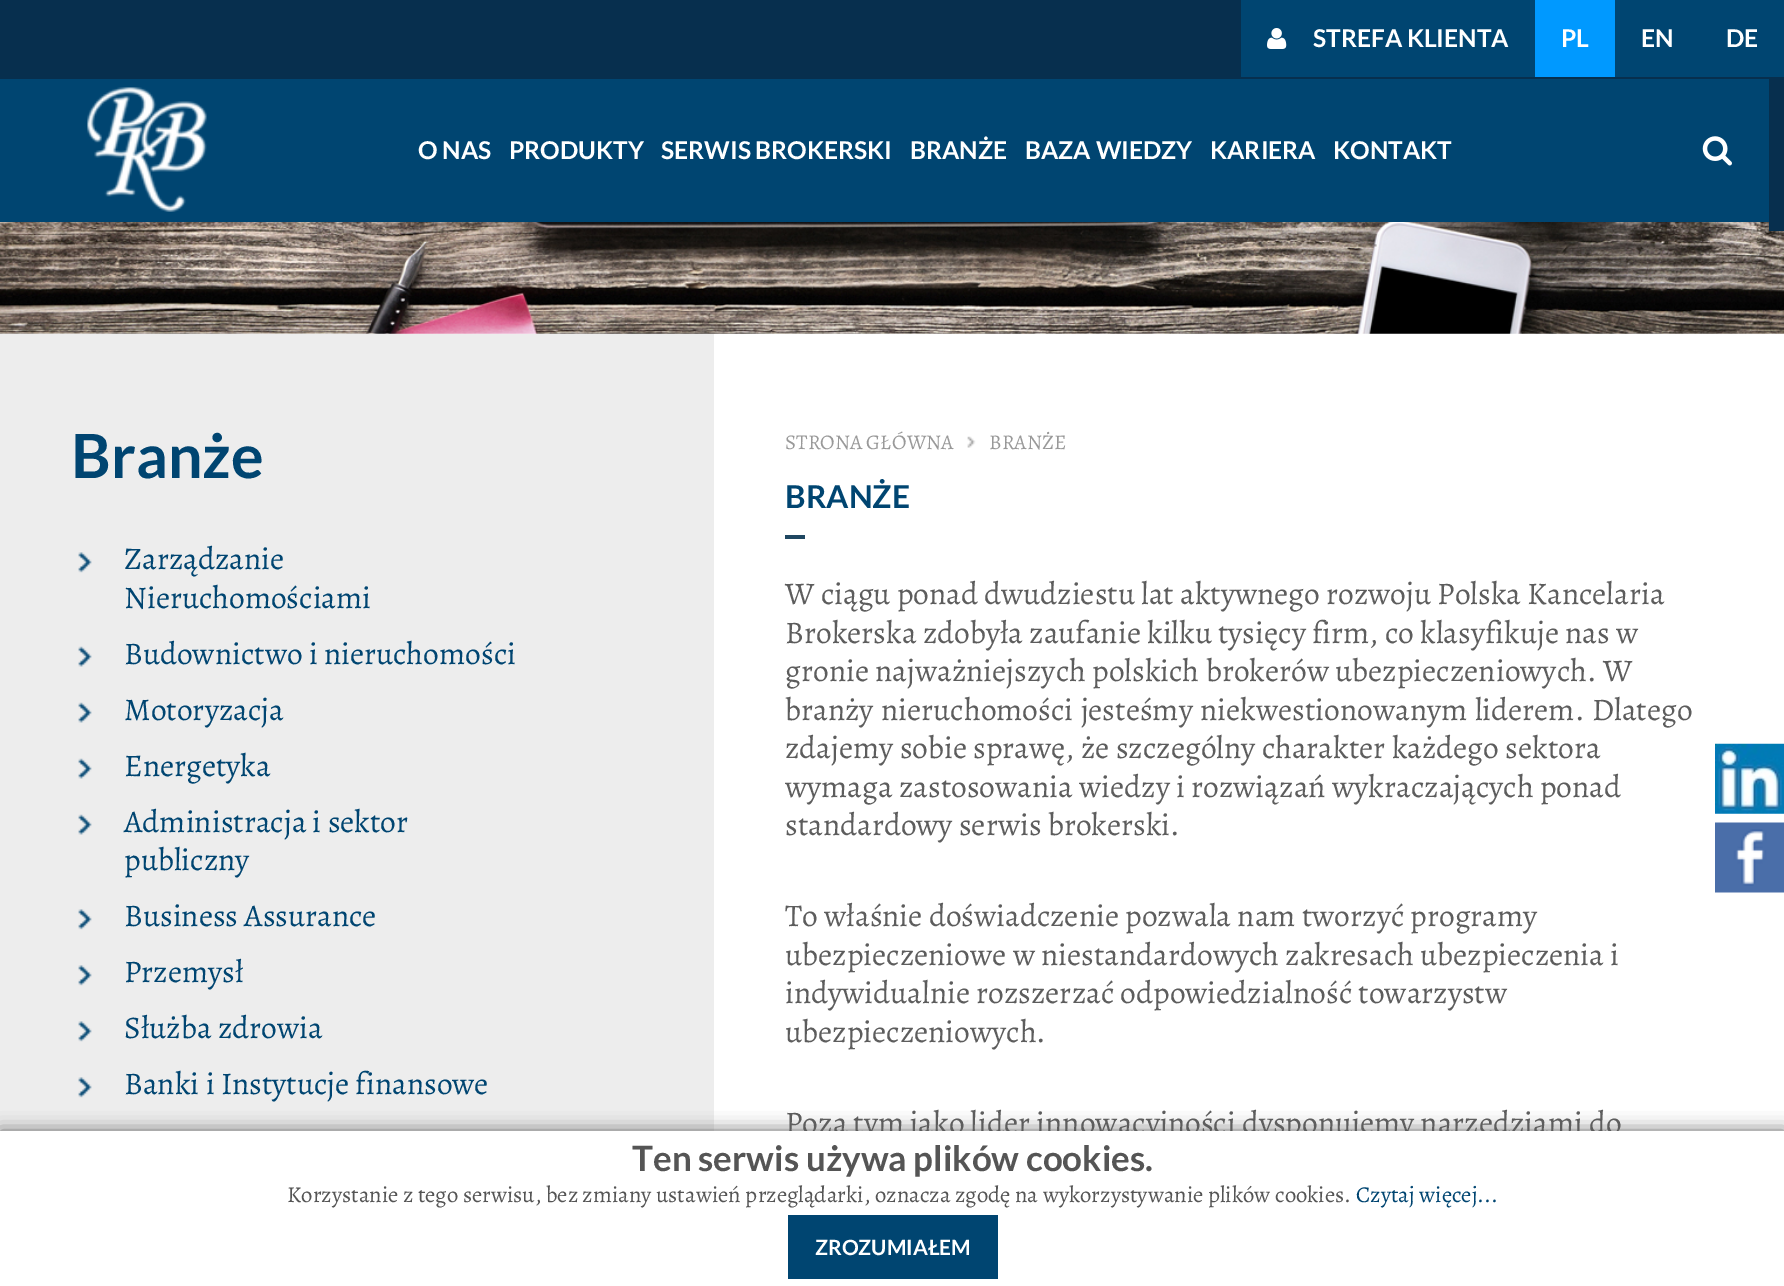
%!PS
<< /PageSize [1784 1286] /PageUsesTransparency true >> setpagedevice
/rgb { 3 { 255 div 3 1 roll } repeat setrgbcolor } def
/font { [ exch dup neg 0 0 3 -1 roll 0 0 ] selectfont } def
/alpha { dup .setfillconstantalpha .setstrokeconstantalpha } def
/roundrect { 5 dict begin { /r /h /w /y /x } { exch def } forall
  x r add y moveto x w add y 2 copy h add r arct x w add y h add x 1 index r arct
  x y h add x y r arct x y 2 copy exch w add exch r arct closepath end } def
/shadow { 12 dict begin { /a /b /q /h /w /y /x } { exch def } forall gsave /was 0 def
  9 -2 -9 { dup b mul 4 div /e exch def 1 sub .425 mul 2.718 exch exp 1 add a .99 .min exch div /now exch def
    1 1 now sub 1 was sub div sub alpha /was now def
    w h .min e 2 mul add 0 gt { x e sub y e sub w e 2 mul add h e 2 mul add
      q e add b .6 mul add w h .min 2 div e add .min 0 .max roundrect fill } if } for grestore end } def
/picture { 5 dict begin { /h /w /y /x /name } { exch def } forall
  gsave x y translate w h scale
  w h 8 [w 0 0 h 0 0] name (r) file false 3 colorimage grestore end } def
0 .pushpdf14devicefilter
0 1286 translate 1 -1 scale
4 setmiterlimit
255 255 255 rgb
0 0 1784 1286 rectfill
(img/1.rgb) 0 222 1784 112 picture
7 47 78 rgb
0 0 1784 79 rectfill
0 69 113 rgb
1241 0 294 77 rectfill
(img/2.rgb) 1267 28 20 21 picture
[
  [1535 0 80 77 0 153 255]
  [1615 0 169 77 0 69 113]
  [0 79 1769 143 0 69 113]
] { aload pop rgb rectfill } forall
(img/3.rgb) 87 87 120 125 picture
7 47 78 rgb
1769 79 15 152 rectfill
(img/4.rgb) 1702 136 30 30 picture
237 237 237 rgb
0 334 714 797 rectfill
(img/5.rgb) 78 552 14 21 picture
(img/6.rgb) 78 646 14 21 picture
(img/6.rgb) 78 702 14 21 picture
(img/6.rgb) 78 758 14 21 picture
(img/6.rgb) 78 814 14 21 picture
(img/5.rgb) 78 909 14 21 picture
(img/5.rgb) 78 965 14 21 picture
(img/5.rgb) 78 1021 14 21 picture
(img/5.rgb) 78 1077 14 21 picture
(img/7.rgb) 967 436 9 12 picture
31 71 97 rgb
785 535 20 4 rectfill
(img/8.rgb) 1715 743 69 71 picture
(img/9.rgb) 1715 822 69 71 picture
102 102 102 rgb
0 1131 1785 155 0 9 1 shadow
/Lato-Bold 24.5 font
255 255 255 rgb
[
  [(STREFA KLIENTA) 1313 47]
  [(PL) 1561 47]
  [(EN) 1641 47]
  [(DE) 1726 47]
  [(O NAS) 418 159]
  [(PRODUKTY) 509 159]
  [(SERWIS BROKERSKI) 661 159]
  [(BRANŻE) 910 159]
  [(BAZA WIEDZY) 1025 159]
  [(KARIERA) 1210 159]
  [(KONTAKT) 1333 159]
] { aload pop moveto show } forall
/Lato-Bold 61 font
0 69 113 rgb
71 478 moveto (Branże) show
/Alegreya-Regular 31.5 font
[
  [(Zarządzanie) 124 569]
  [(Nieruchomościami) 124 608]
  [(Budownictwo i nieruchomości) 124 664]
  [(Motoryzacja) 124 720]
  [(Energetyka) 124 776]
  [(Administracja i sektor) 124 832]
  [(publiczny) 124 870]
  [(Business Assurance) 124 926]
  [(Przemysł) 124 982]
  [(Służba zdrowia) 124 1038]
  [(Banki i Instytucje finansowe) 124 1094]
] { aload pop moveto show } forall
/Alegreya-Regular 21 font
153 153 153 rgb
785 449 moveto (STRONA GŁÓWNA) show
989 449 moveto (BRANŻE) show
/Lato-Bold 31.5 font
0 69 113 rgb
785 508 moveto (BRANŻE) show
/Alegreya-Regular 31.5 font
93 93 93 rgb
[
  [(W ciągu ponad dwudziestu lat aktywnego rozwoju Polska Kancelaria) 785 604]
  [(Brokerska zdobyła zaufanie kilku tysięcy firm, co klasyfikuje nas w) 785 643]
  [(gronie najważniejszych polskich brokerów ubezpieczeniowych. W) 785 681]
] { aload pop moveto show } forall
785 720 moveto 1.25 0 32 (branży nieruchomości jesteśmy niekwestionowanym liderem. Dlatego) widthshow
[
  [(zdajemy sobie sprawę, że szczególny charakter każdego sektora) 785 758]
  [(wymaga zastosowania wiedzy i rozwiązań wykraczających ponad) 785 797]
  [(standardowy serwis brokerski.) 785 835]
  [(To właśnie doświadczenie pozwala nam tworzyć programy) 785 926]
  [(ubezpieczeniowe w niestandardowych zakresach ubezpieczenia i) 785 965]
  [(indywidualnie rozszerzać odpowiedzialność towarzystw) 785 1003]
  [(ubezpieczeniowych.) 785 1042]
  [(Poza tym jako lider innowacyjności dysponujemy narzędziami do) 785 1133]
] { aload pop moveto show } forall
255 255 255 rgb
0 1131 1784 155 rectfill
/Lato-Bold 35 font
85 85 85 rgb
632 1171 moveto (Ten serwis używa plików cookies.) show
/Alegreya-Regular 22.75 font
287 1202 moveto (Korzystanie z tego serwisu, bez zmiany ustawień przeglądarki, oznacza zgodę na wykorzystywanie plików cookies.) show
0 69 113 rgb
1356 1202 moveto (Czytaj więcej...) show
788 1215 210 64 rectfill
/Lato-Bold 21 font
255 255 255 rgb
815 1255 moveto (ZROZUMIAŁEM) show
.poppdf14devicefilter showpage
